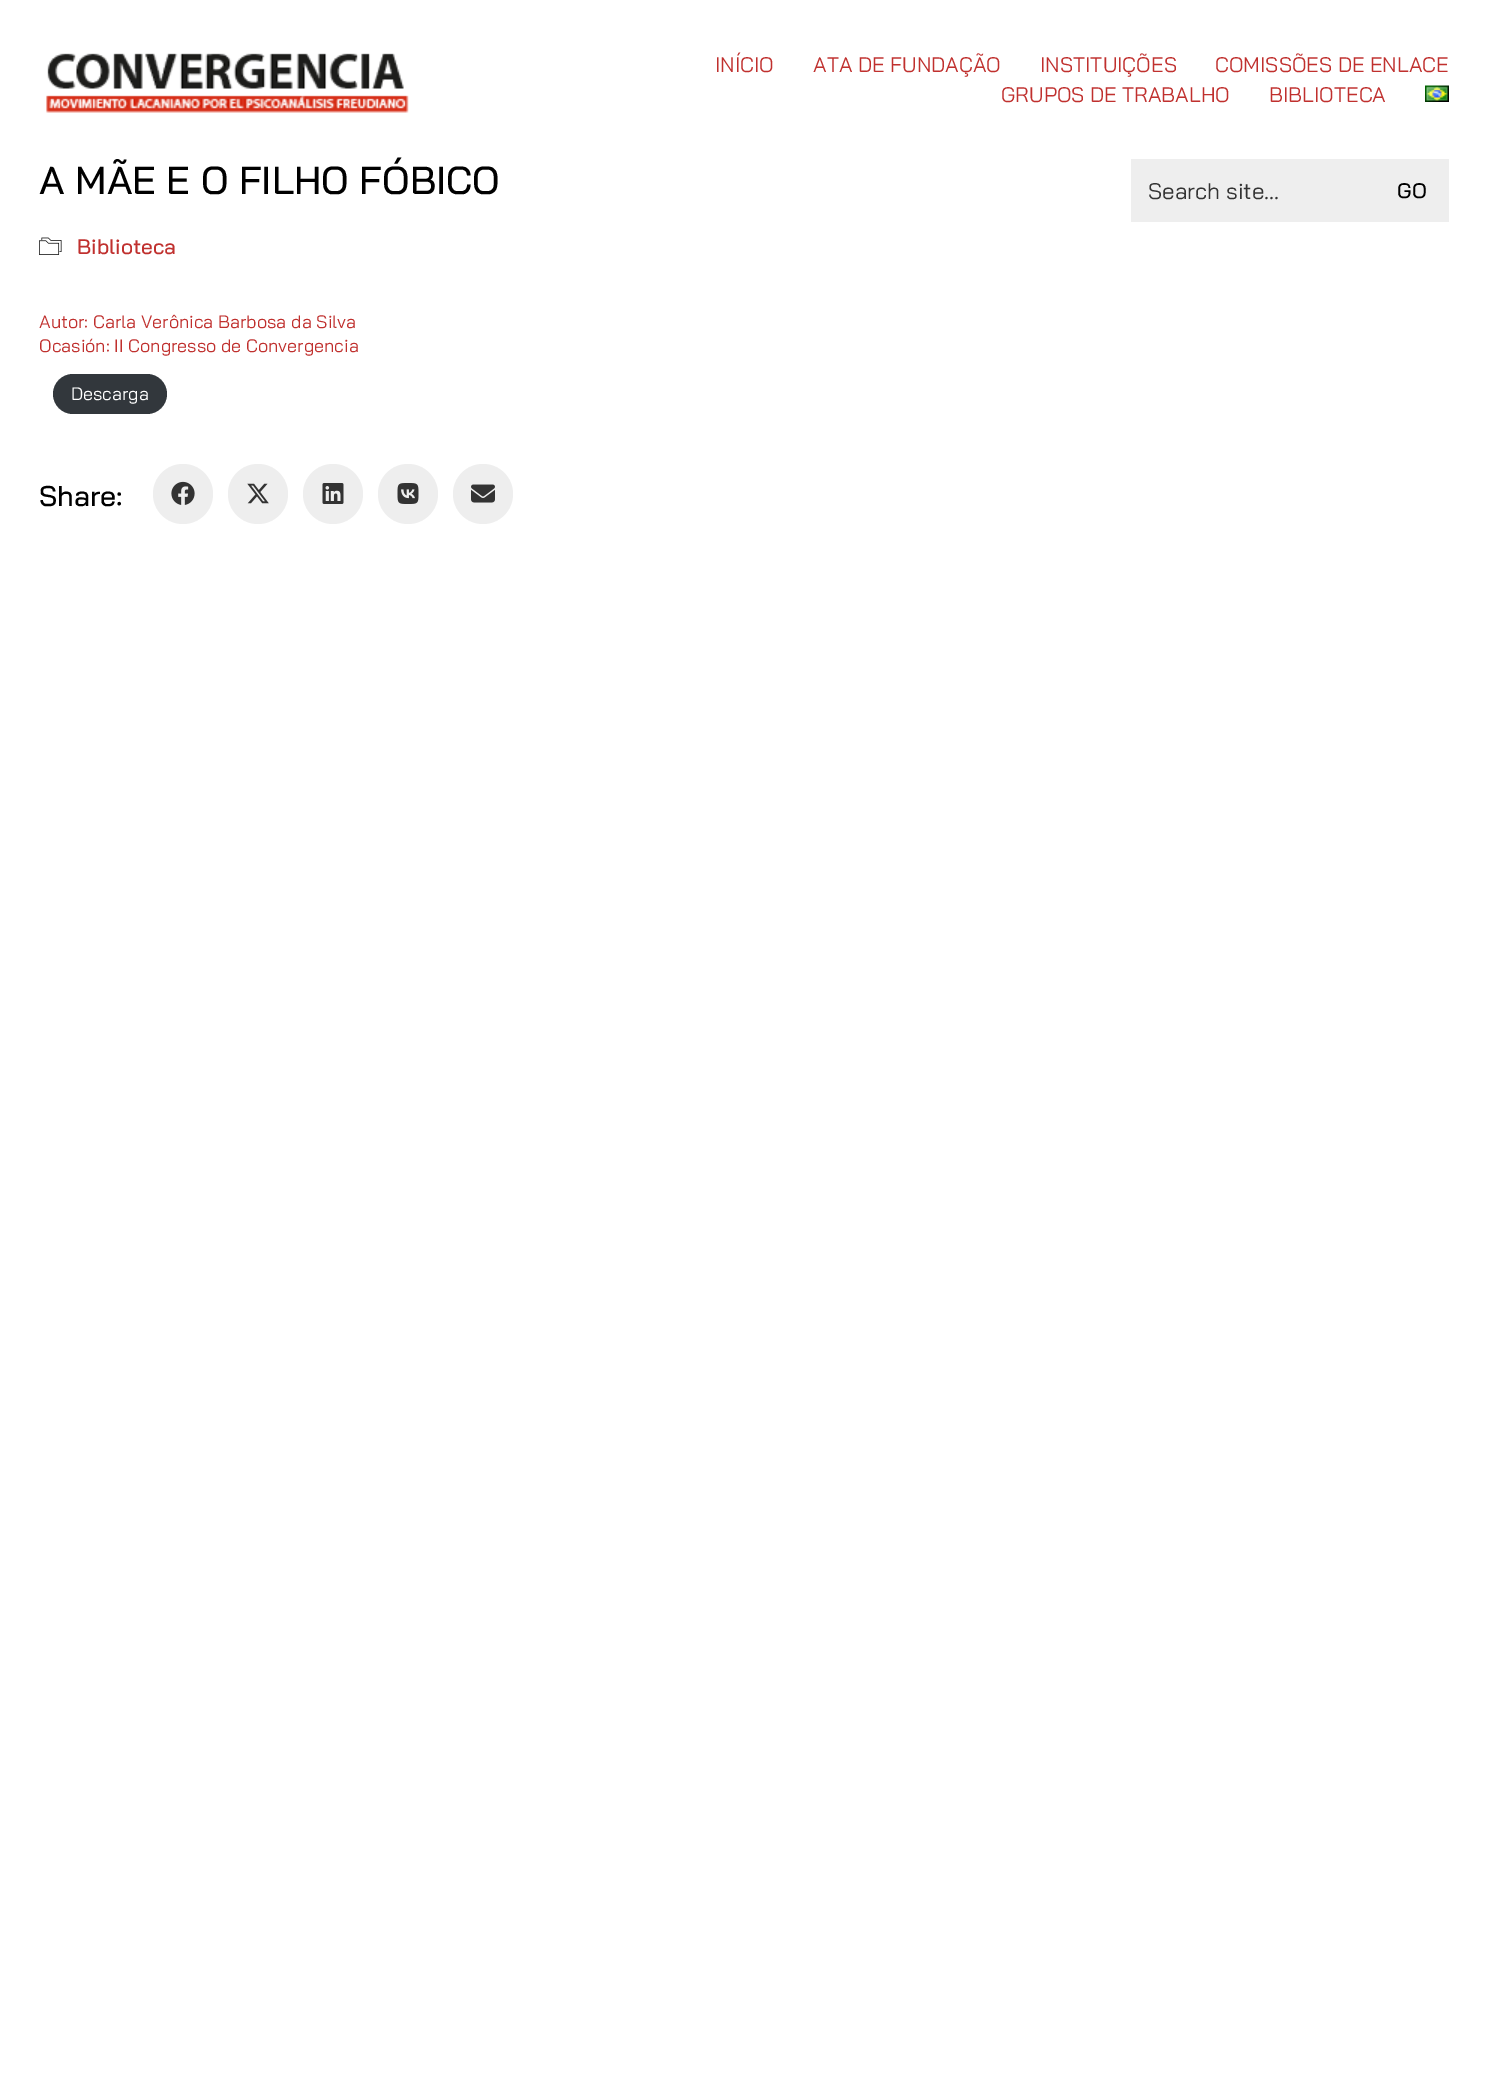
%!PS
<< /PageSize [1487 2077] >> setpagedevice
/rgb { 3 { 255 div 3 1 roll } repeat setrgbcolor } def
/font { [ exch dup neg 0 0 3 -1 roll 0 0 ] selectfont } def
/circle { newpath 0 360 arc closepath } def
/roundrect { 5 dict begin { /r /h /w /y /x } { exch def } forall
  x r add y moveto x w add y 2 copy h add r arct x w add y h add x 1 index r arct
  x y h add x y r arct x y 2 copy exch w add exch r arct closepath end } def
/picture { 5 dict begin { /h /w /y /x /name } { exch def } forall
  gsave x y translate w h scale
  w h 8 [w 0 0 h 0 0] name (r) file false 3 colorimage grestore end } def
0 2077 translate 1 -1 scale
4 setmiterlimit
255 255 255 rgb
0 0 1487 2077 rectfill
(img/1.rgb) 46 53 363 60 picture
(img/2.rgb) 1425 85 24 17 picture
(img/3.rgb) 39 237 23 18 picture
50 55 60 rgb
53 374 114 40 20 roundrect fill
238 238 238 rgb
183 494 30 circle fill
(img/4.rgb) 171 481 24 24 picture
258 494 30 circle fill
(img/5.rgb) 247 483 22 21 picture
333 494 30 circle fill
(img/6.rgb) 322 483 22 21 picture
408 494 30 circle fill
(img/7.rgb) 397 483 22 21 picture
483 494 30 circle fill
(img/8.rgb) 471 484 24 19 picture
1131 159 318 63 rectfill
/BaiJamjuree-Regular 21 font
192 48 46 rgb
[
  [(INÍCIO) 715 72]
  [(ATA DE FUNDAÇÃO) 813 72]
  [(INSTITUIÇÕES) 1040 72]
  [(COMISSÕES DE ENLACE) 1215 72]
  [(GRUPOS DE TRABALHO) 1001 102]
  [(BIBLIOTECA) 1269 102]
] { aload pop moveto show } forall
/BaiJamjuree-Medium 39 font
0 0 0 rgb
39 194 moveto (A MÃE E O FILHO FÓBICO) show
/BaiJamjuree-Medium 21 font
192 48 46 rgb
77 254 moveto (Biblioteca) show
/BaiJamjuree-Regular 18 font
39 328 moveto (Autor: Carla Verônica Barbosa da Silva) show
39 352 moveto (Ocasión: II Congresso de Convergencia) show
255 255 255 rgb
71 400 moveto (Descarga) show
/BaiJamjuree-Medium 28.5 font
0 0 0 rgb
39 506 moveto (Share:) show
/BaiJamjuree-Regular 22.5 font
51 51 51 rgb
1148 199 moveto (Search site...) show
/BaiJamjuree-Medium 21 font
0 0 0 rgb
1397 198 moveto (GO) show
showpage
